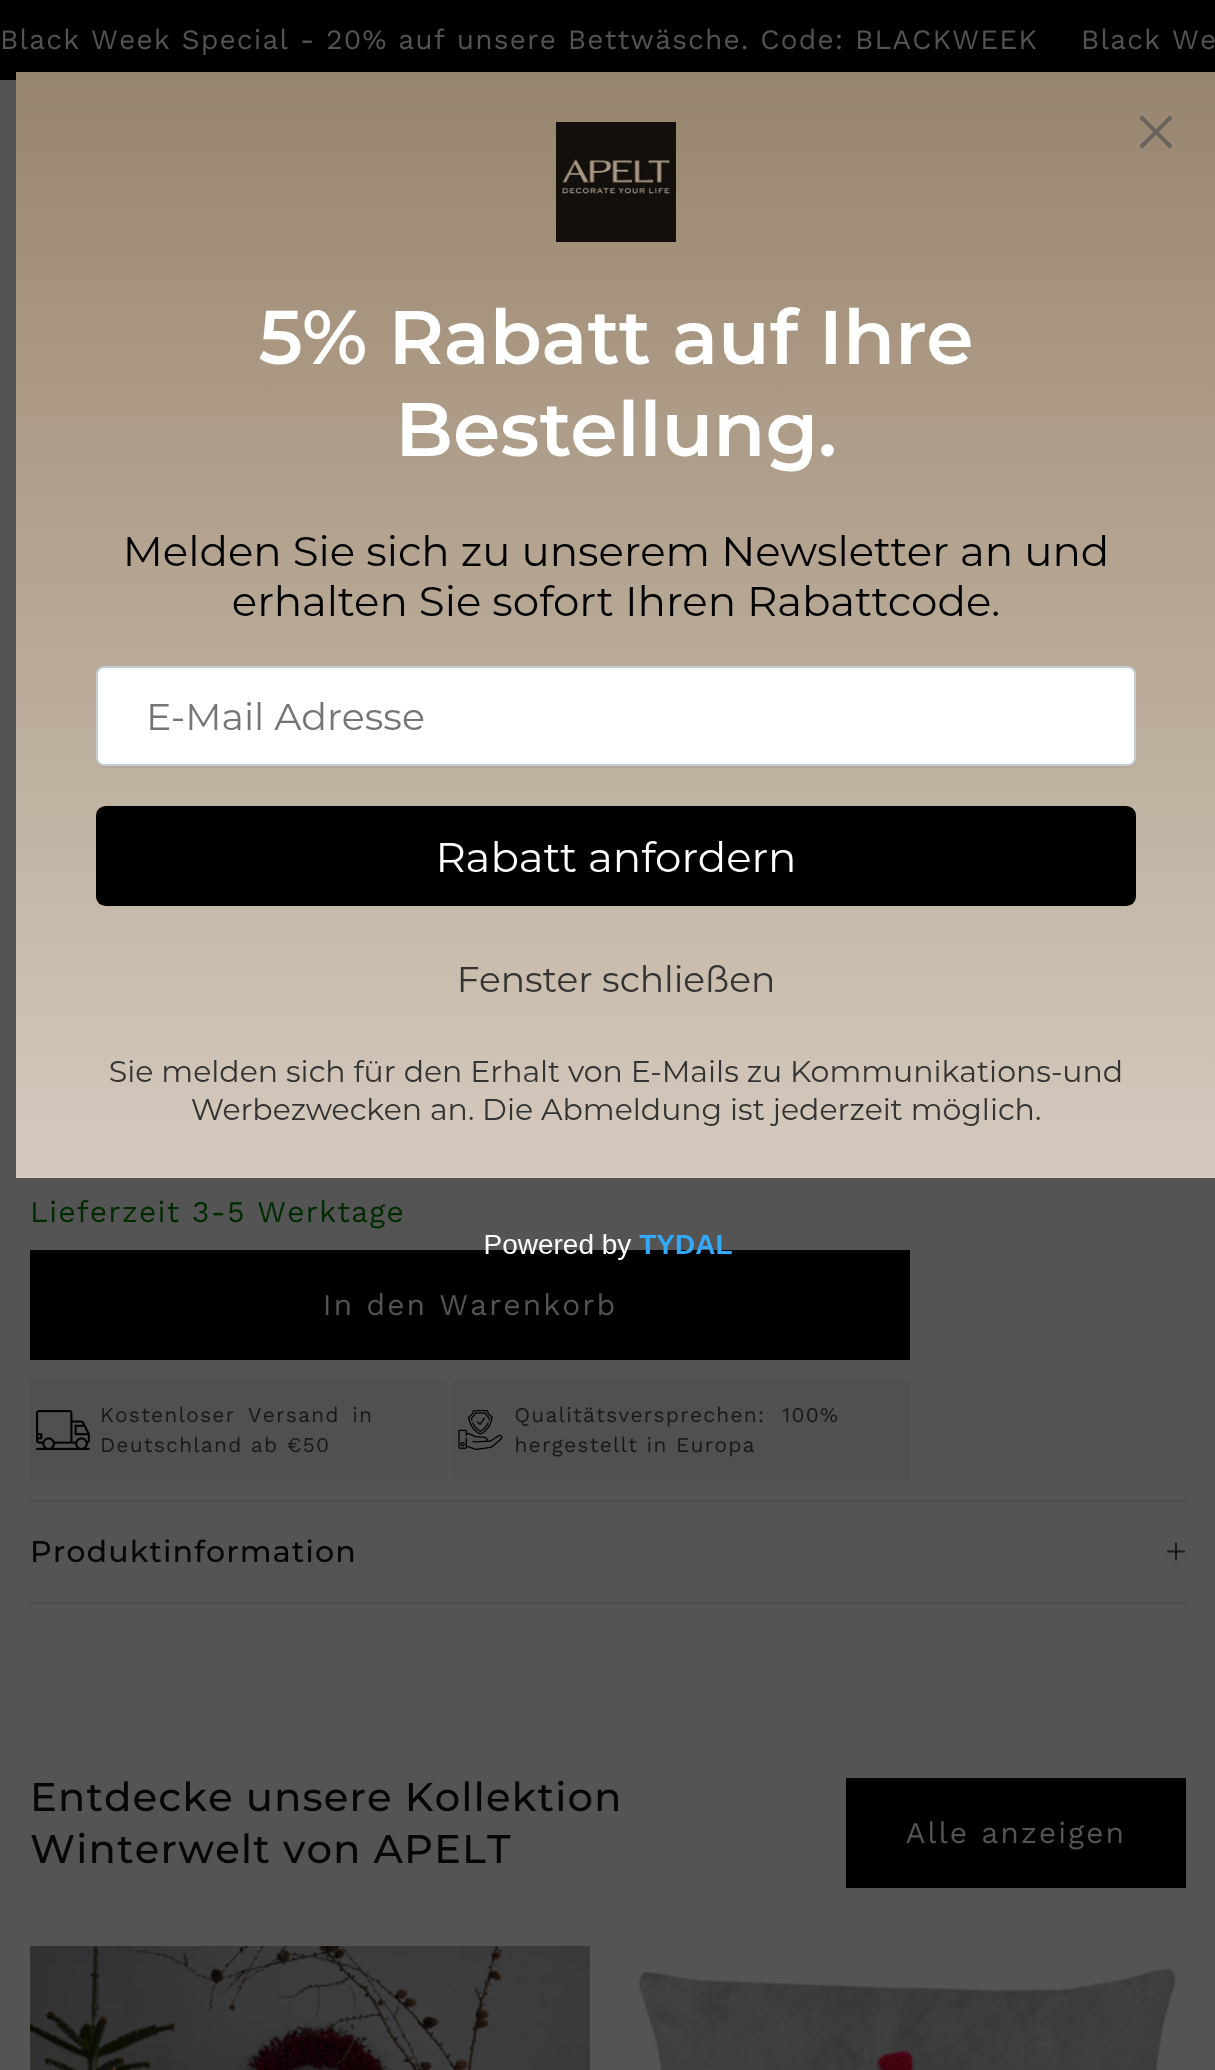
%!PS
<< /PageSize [1215 2070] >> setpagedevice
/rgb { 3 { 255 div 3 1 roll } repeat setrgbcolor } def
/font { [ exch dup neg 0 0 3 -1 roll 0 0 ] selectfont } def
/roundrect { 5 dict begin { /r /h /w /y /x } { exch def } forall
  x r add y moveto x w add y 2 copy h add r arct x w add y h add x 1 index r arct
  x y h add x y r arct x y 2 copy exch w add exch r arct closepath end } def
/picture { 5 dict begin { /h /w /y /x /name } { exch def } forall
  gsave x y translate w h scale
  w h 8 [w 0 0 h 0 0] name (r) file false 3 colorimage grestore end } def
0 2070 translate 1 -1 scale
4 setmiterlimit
255 255 255 rgb
0 0 1215 2070 rectfill
0 0 0 rgb
0 0 1215 80 rectfill
30 1250 880 110 rectfill
243 243 243 rgb
30 1380 418 100 4 roundrect fill
(img/2.rgb) 36 1410 54 40 picture
452 1380 458 100 4 roundrect fill
(img/3.rgb) 458 1410 45 40 picture
236 236 236 rgb
30 1500 1156 2 rectfill
30 1602 1156 2 rectfill
(img/4.rgb) 1167 1542 18 19 picture
0 0 0 rgb
846 1778 340 110 rectfill
(img/5.rgb) 30 1946 560 124 picture
(img/6.rgb) 626 1946 560 124 picture
/WorkSans-Regular 28 font
255 255 255 rgb
0 49 moveto 1.2 0 (Black Week Special - 20% auf unsere Bettwäsche. Code: BLACKWEEK    Black We) ashow
/WorkSans-Regular 30 font
0 128 0 rgb
30 1222 moveto 1.2 0 (Lieferzeit 3-5 Werktage) ashow
255 255 255 rgb
323 1315 moveto 2 0 (In den Warenkorb) ashow
/WorkSans-Regular 21 font
74 74 74 rgb
100 1422 moveto 4 0 32 1.2 0 (Kostenloser Versand in) awidthshow
100 1452 moveto 1.2 0 (Deutschland ab €50) ashow
514 1422 moveto 8 0 32 1.2 0 (Qualitätsversprechen: 100%) awidthshow
514 1452 moveto 1.2 0 (hergestellt in Europa) ashow
/Montserrat-Bold 30 font
18 18 18 rgb
30 1562 moveto 1.2 0 (Produktinformation) ashow
/Montserrat-Bold 40 font
30 1811 moveto 1.2 0 (Entdecke unsere Kollektion) ashow
30 1863 moveto 1.2 0 (Winterwelt von APELT) ashow
/WorkSans-Regular 30 font
255 255 255 rgb
906 1843 moveto 2 0 (Alle anzeigen) ashow
(img/1.rgb) 0 28 1215 2042 picture
showpage
